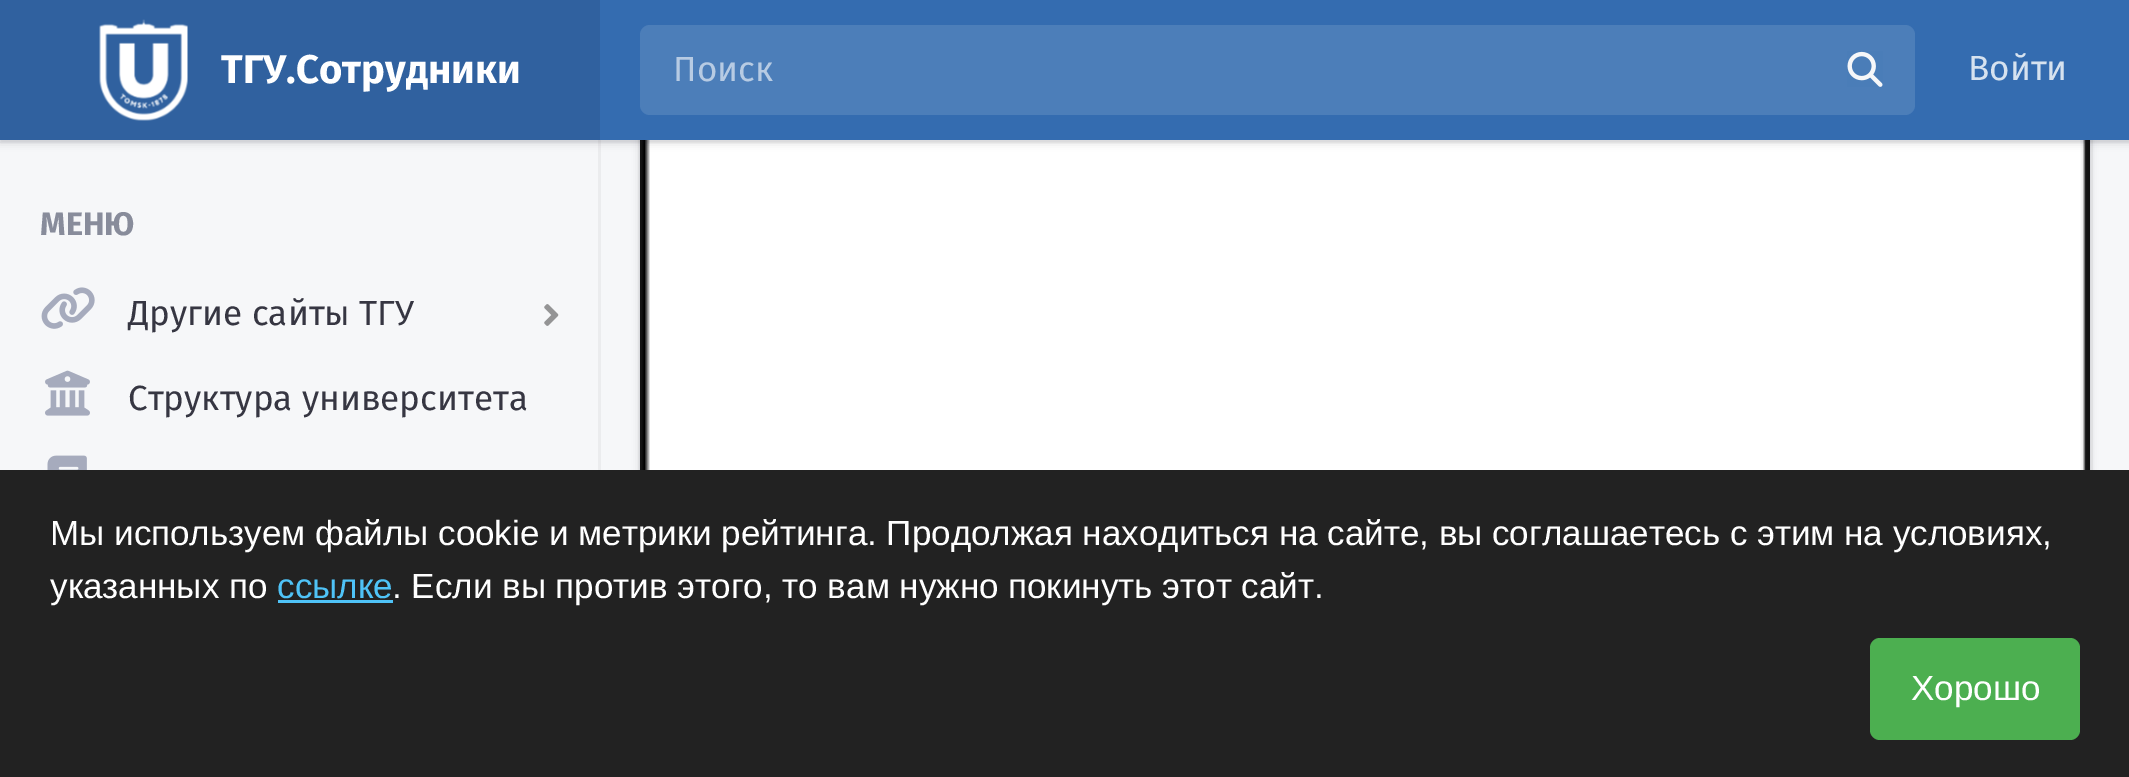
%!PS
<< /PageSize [2129 777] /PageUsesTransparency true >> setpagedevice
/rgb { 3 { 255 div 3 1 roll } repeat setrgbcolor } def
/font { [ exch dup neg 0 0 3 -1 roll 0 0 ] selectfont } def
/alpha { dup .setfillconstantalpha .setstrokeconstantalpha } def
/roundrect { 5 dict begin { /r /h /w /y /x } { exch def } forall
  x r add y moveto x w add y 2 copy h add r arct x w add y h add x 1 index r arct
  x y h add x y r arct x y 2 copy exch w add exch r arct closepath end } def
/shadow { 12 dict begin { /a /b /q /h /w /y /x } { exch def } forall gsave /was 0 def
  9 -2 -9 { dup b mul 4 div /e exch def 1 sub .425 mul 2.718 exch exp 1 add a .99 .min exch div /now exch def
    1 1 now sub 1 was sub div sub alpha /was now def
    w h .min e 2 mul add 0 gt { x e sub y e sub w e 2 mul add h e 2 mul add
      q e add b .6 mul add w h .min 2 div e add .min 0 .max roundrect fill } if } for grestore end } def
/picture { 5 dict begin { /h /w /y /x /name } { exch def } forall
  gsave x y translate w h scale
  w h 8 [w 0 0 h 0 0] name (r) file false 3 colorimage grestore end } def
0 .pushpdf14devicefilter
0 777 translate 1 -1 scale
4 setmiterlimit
246 247 249 rgb
0 0 2129 777 rectfill
gsave
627 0 moveto 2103 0 lineto 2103 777 lineto 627 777 lineto closepath 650 -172 moveto 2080 -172 lineto 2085.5 -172 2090 -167.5 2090 -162 curveto 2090 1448 lineto 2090 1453.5 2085.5 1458 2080 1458 curveto 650 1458 lineto 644.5 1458 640 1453.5 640 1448 curveto 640 -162 lineto 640 -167.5 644.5 -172 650 -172 curveto closepath eoclip newpath
20 20 31 rgb
640 -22 1450 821 10 4 0.15 shadow
grestore
0.05 alpha
20 20 31 rgb
3 setlinewidth
639.5 -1.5 1452 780 rectstroke
1 alpha
(img/1.rgb) 640 140 1450 330 picture
235 236 238 rgb
598 140 3 330 rectfill
20 20 31 rgb
0 3 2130 140 0 4 0.15 shadow
0.05 alpha
-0.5 -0.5 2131 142 rectstroke
1 alpha
52 108 176 rgb
600 0 1529 140 rectfill
48 97 159 rgb
0 0 600 140 rectfill
(img/2.rgb) 99 19 89 102 picture
76 126 185 rgb
640 25 1275 90 10 roundrect fill
(img/3.rgb) 1847 51 36 36 picture
(img/4.rgb) 41 287 54 42 picture
(img/5.rgb) 544 304 15 22 picture
(img/6.rgb) 45 370 45 46 picture
(img/7.rgb) 47 455 40 15 picture
34 34 34 rgb
0 470 2129 307 rectfill
79 195 247 rgb
278 600 115 3 rectfill
76 175 80 rgb
1870 638 210 102 10 roundrect fill
/FiraSans-Bold 40 font
255 255 255 rgb
221 83 moveto (ТГУ.Сотрудники) show
/FiraSans-Regular 35 font
183 203 227 rgb
673 81 moveto (Поиск) show
214 226 239 rgb
1968 80 moveto (Войти) show
/FiraSans-Bold 32.5 font
136 140 155 rgb
40 235 moveto (МЕНЮ) show
/FiraSans-Regular 35 font
54 54 66 rgb
128 325 moveto (Другие сайты ТГУ) show
128 410 moveto (Структура университета) show
/LiberationSans-Regular 35 font
255 255 255 rgb
50 545 moveto (Мы используем файлы cookie и метрики рейтинга. Продолжая находиться на сайте, вы соглашаетесь с этим на условиях,) show
50 598 moveto (указанных по) show
79 195 247 rgb
277 598 moveto (ссылке) show
255 255 255 rgb
392 598 moveto (. Если вы против этого, то вам нужно покинуть этот сайт.) show
1911 700 moveto (Хорошо) show
.poppdf14devicefilter showpage
